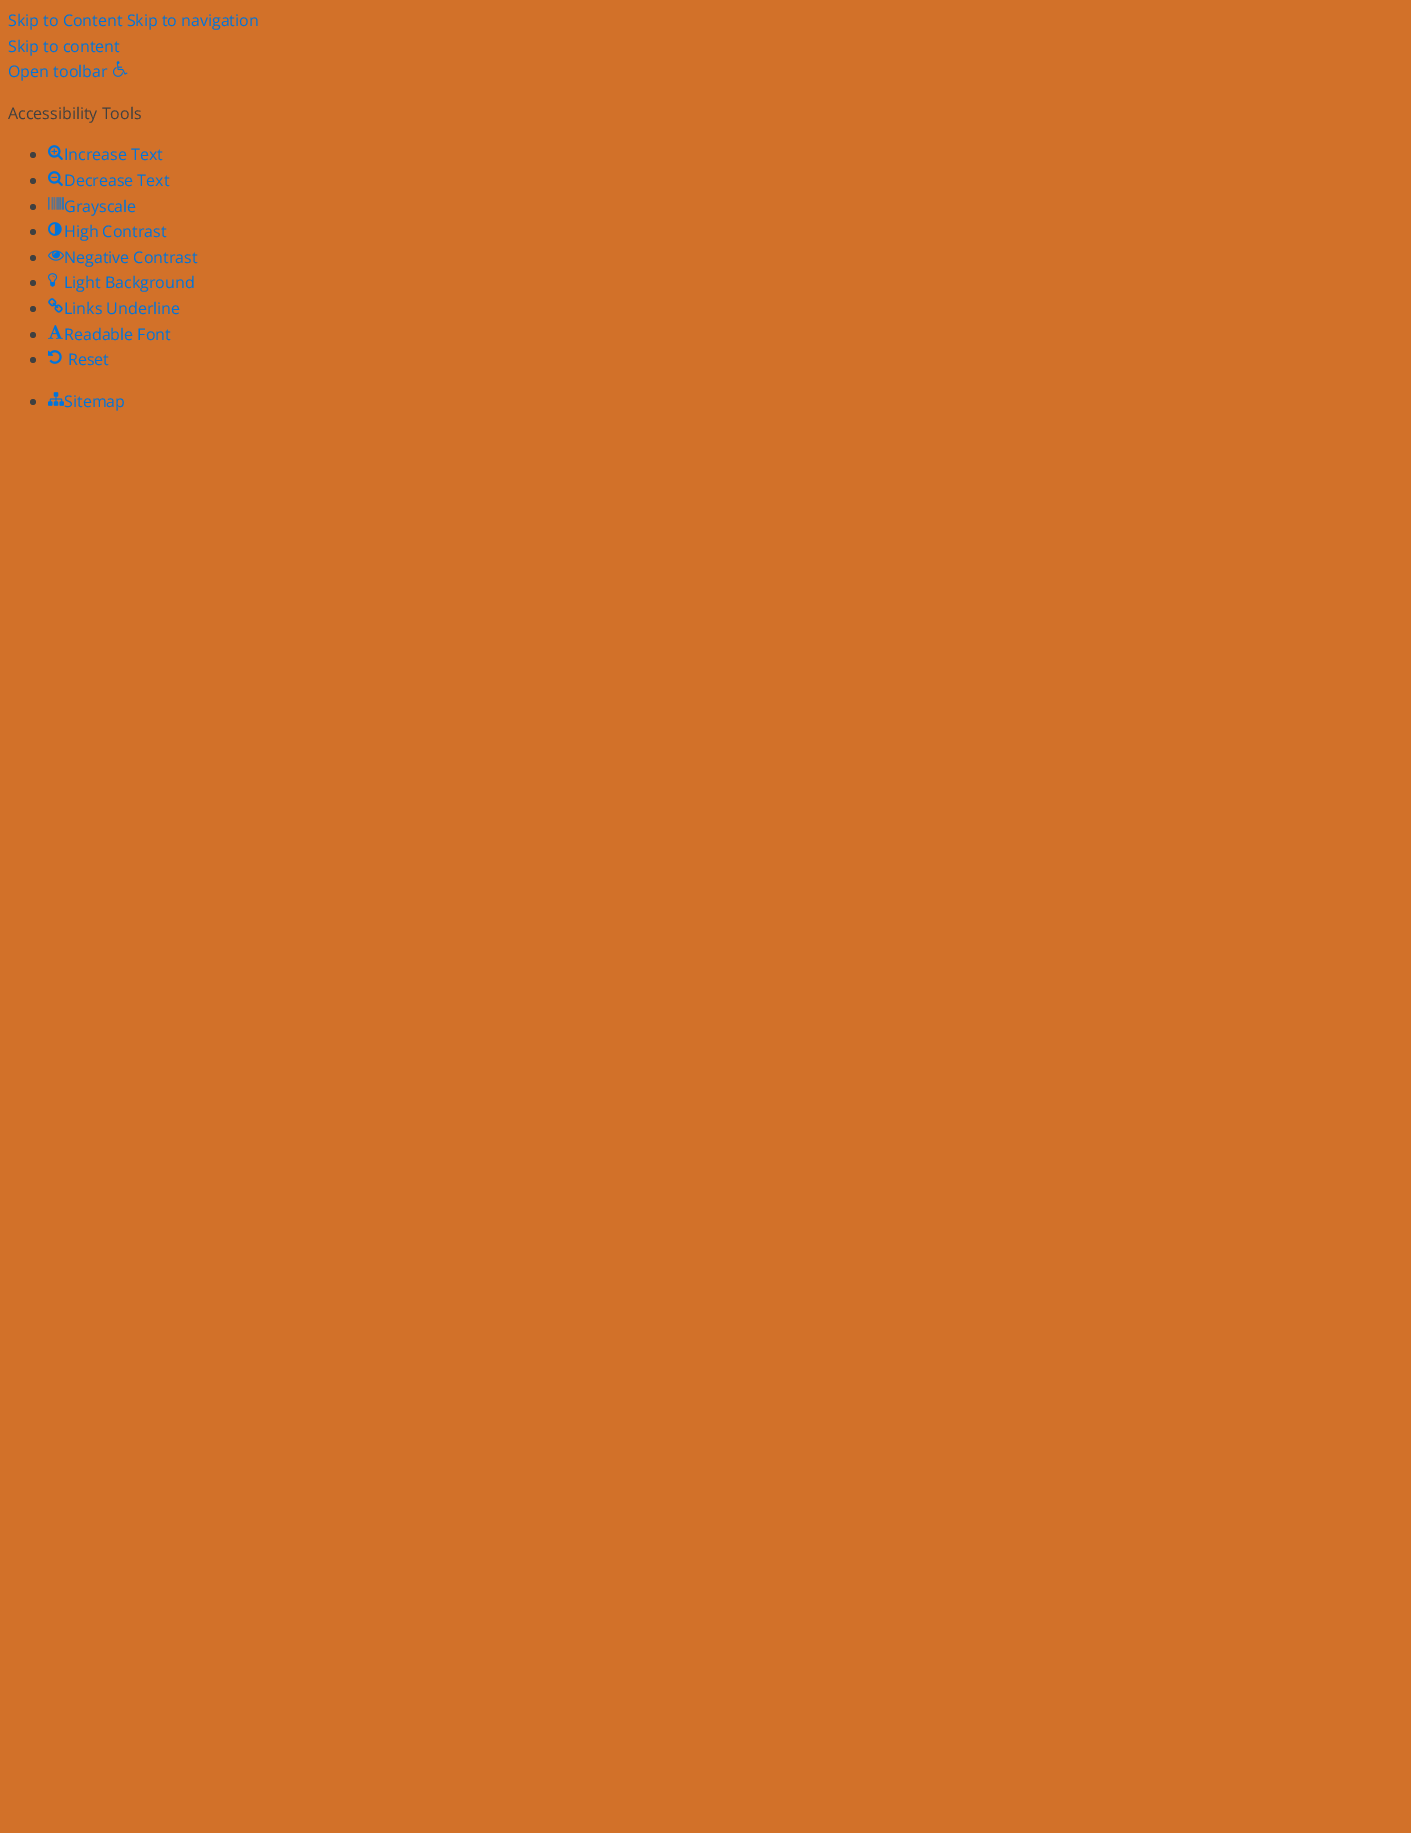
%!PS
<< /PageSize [1411 1833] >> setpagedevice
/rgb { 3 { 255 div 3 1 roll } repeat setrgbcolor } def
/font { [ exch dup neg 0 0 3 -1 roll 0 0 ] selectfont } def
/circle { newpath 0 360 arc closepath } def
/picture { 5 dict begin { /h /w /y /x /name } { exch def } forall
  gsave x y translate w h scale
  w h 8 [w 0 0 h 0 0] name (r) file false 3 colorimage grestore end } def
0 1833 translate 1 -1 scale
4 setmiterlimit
210 113 41 rgb
0 0 1411 1833 rectfill
(img/1.rgb) 113 61 15 16 picture
64 64 64 rgb
33 155 3 circle fill
(img/2.rgb) 48 145 15 15 picture
33 181 3 circle fill
(img/3.rgb) 48 171 15 15 picture
33 207 3 circle fill
(img/4.rgb) 48 197 16 13 picture
33 232 3 circle fill
(img/5.rgb) 48 222 14 14 picture
33 258 3 circle fill
(img/6.rgb) 48 250 16 11 picture
33 283 3 circle fill
(img/7.rgb) 48 273 10 14 picture
33 309 3 circle fill
(img/8.rgb) 48 298 15 15 picture
33 335 3 circle fill
(img/9.rgb) 48 325 15 14 picture
33 360 3 circle fill
(img/10.rgb) 48 350 14 14 picture
33 402 3 circle fill
(img/11.rgb) 48 392 16 14 picture
/OpenSans-Regular 16 font
0 116 219 rgb
[
  [(Skip to Content Skip to navigation) 8 26]
  [(Skip to content) 8 52]
  [(Open toolbar) 8 77]
] { aload pop moveto show } forall
64 64 64 rgb
8 119 moveto (Accessibility Tools) show
0 116 219 rgb
[
  [(Increase Text) 64 160]
  [(Decrease Text) 64 186]
  [(Grayscale) 64 212]
  [(High Contrast) 64 237]
  [(Negative Contrast) 64 263]
  [(Light Background) 64 288]
  [(Links Underline) 64 314]
  [(Readable Font) 64 340]
  [(Reset) 68 365]
  [(Sitemap) 64 407]
] { aload pop moveto show } forall
showpage
